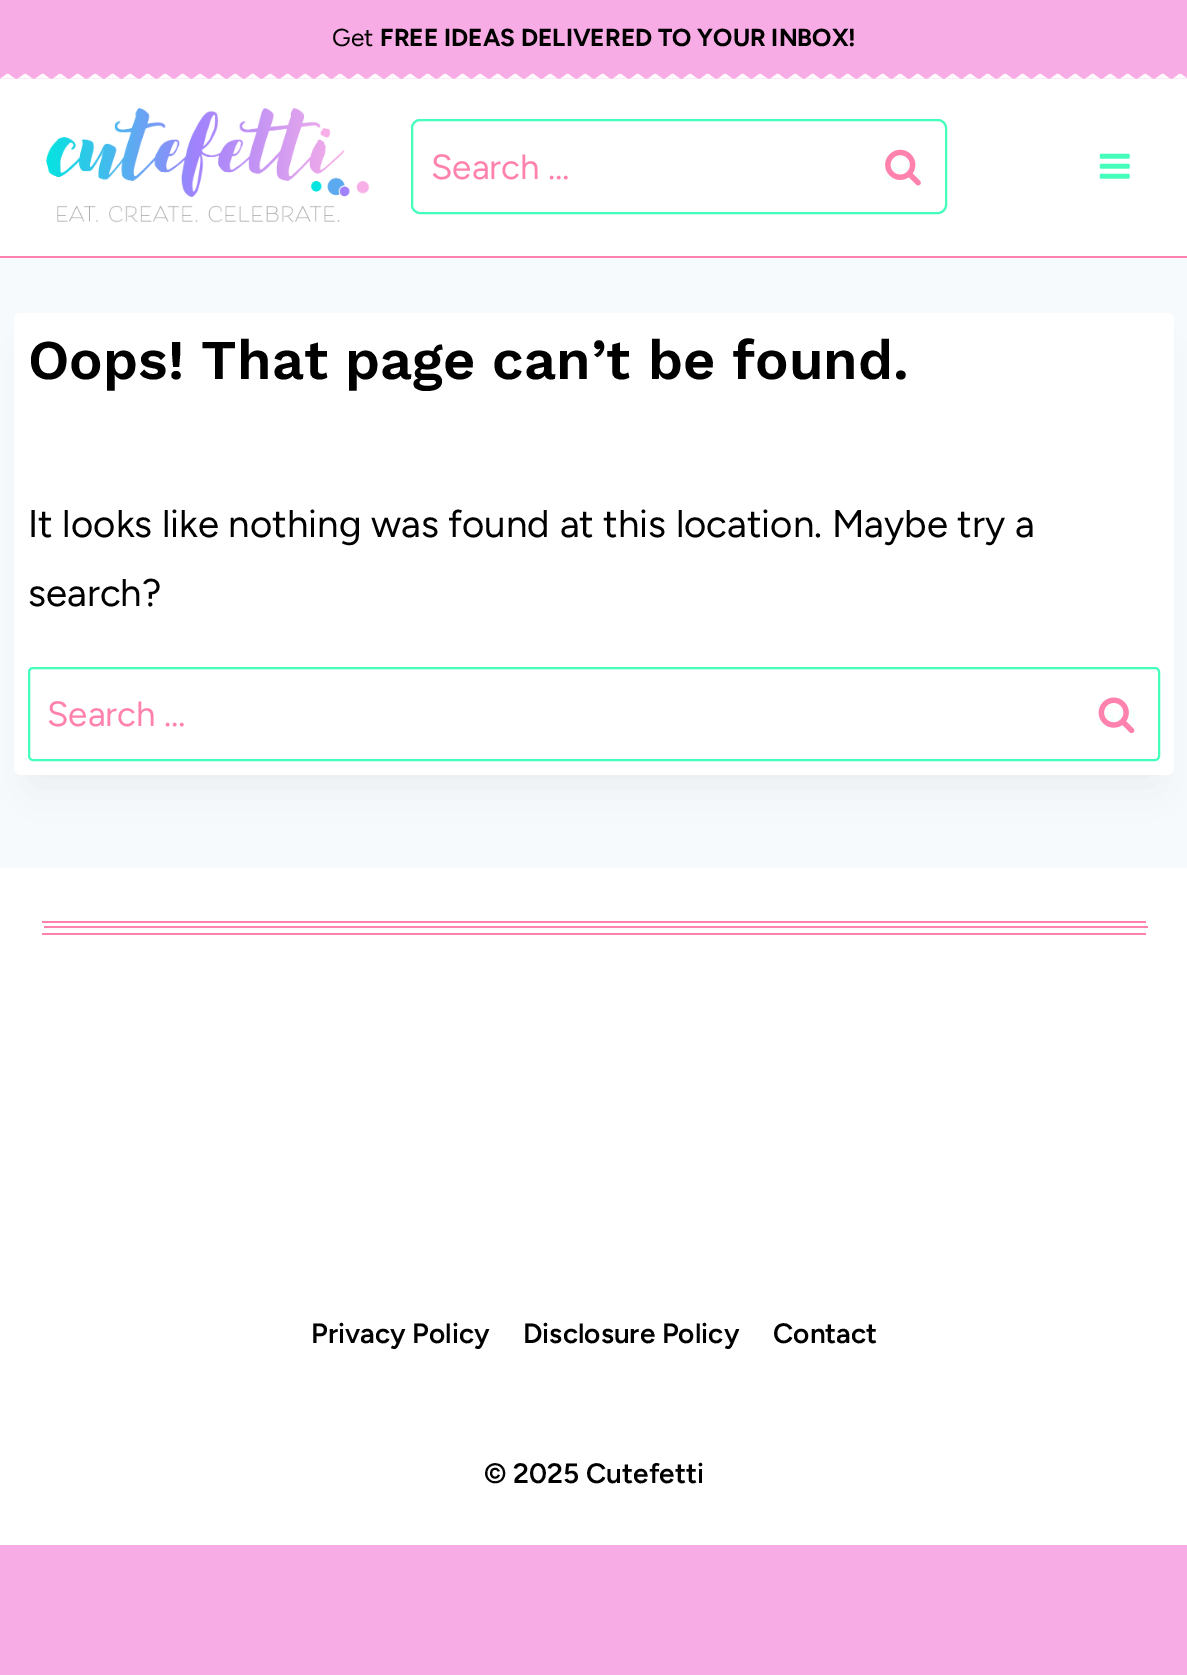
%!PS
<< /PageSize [1187 1675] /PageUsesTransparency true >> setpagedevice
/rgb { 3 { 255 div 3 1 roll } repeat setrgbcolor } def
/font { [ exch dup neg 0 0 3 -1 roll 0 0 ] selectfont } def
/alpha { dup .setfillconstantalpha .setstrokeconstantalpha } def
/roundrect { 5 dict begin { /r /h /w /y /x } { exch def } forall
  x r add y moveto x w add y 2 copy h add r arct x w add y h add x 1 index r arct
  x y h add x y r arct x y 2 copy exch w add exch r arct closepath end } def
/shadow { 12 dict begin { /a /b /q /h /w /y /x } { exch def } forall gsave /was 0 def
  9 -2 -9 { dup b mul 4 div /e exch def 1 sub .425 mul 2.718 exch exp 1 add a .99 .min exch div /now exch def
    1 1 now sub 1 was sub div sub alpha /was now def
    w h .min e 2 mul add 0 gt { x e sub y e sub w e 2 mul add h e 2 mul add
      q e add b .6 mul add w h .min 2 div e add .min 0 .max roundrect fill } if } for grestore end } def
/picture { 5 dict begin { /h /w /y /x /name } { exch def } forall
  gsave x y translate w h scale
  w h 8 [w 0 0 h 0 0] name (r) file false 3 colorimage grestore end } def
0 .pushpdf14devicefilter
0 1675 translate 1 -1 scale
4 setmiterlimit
247 250 252 rgb
0 0 1187 1675 rectfill
255 255 255 rgb
0 79 1187 177 rectfill
248 172 229 rgb
0 0 1187 79 rectfill
(img/1.rgb) 0 73 1187 6 picture
255 130 174 rgb
0 256 1187 2 rectfill
(img/2.rgb) 46 108 324 115 picture
68 255 187 rgb
2 setlinewidth
412 120 534 93 8 roundrect stroke
(img/3.rgb) 885 149 36 37 picture
(img/4.rgb) 1099 153 31 26 picture
0 0 0 rgb
32 357 1125 427 0 22 0.05 shadow
255 255 255 rgb
14 313 1160 462 7 roundrect fill
68 255 187 rgb
29 668 1130 92 4 roundrect stroke
(img/5.rgb) 1098 697 37 36 picture
[
  [0 868 1187 677 255 255 255]
  [42 921 1104 2 255 130 174]
  [42 933 1104 2 255 130 174]
  [44 926 1104 2 255 130 174]
  [0 1545 1187 130 248 172 229]
] { aload pop rgb rectfill } forall
/Figtree-Regular 24.5 font
0 0 0 rgb
332 46 moveto (Get) show
/Figtree-Bold 24.5 font
380 46 moveto (FREE IDEAS DELIVERED TO YOUR INBOX!) show
/Figtree-Regular 35 font
255 130 174 rgb
431 179 moveto (Search …) show
/WorkSans-SemiBold 56 font
0 0 0 rgb
28 379 moveto (Oops! That page can’t be found.) show
/Figtree-Regular 38.5 font
28 537 moveto (It looks like nothing was found at this location. Maybe try a) show
28 606 moveto (search?) show
/Figtree-Regular 35 font
255 130 174 rgb
47 726 moveto (Search …) show
/Figtree-SemiBold 28 font
0 0 0 rgb
[
  [(Privacy Policy) 311 1343]
  [(Disclosure Policy) 523 1343]
  [(Contact) 773 1343]
  [(© 2025 Cutefetti) 484 1483]
] { aload pop moveto show } forall
.poppdf14devicefilter showpage
